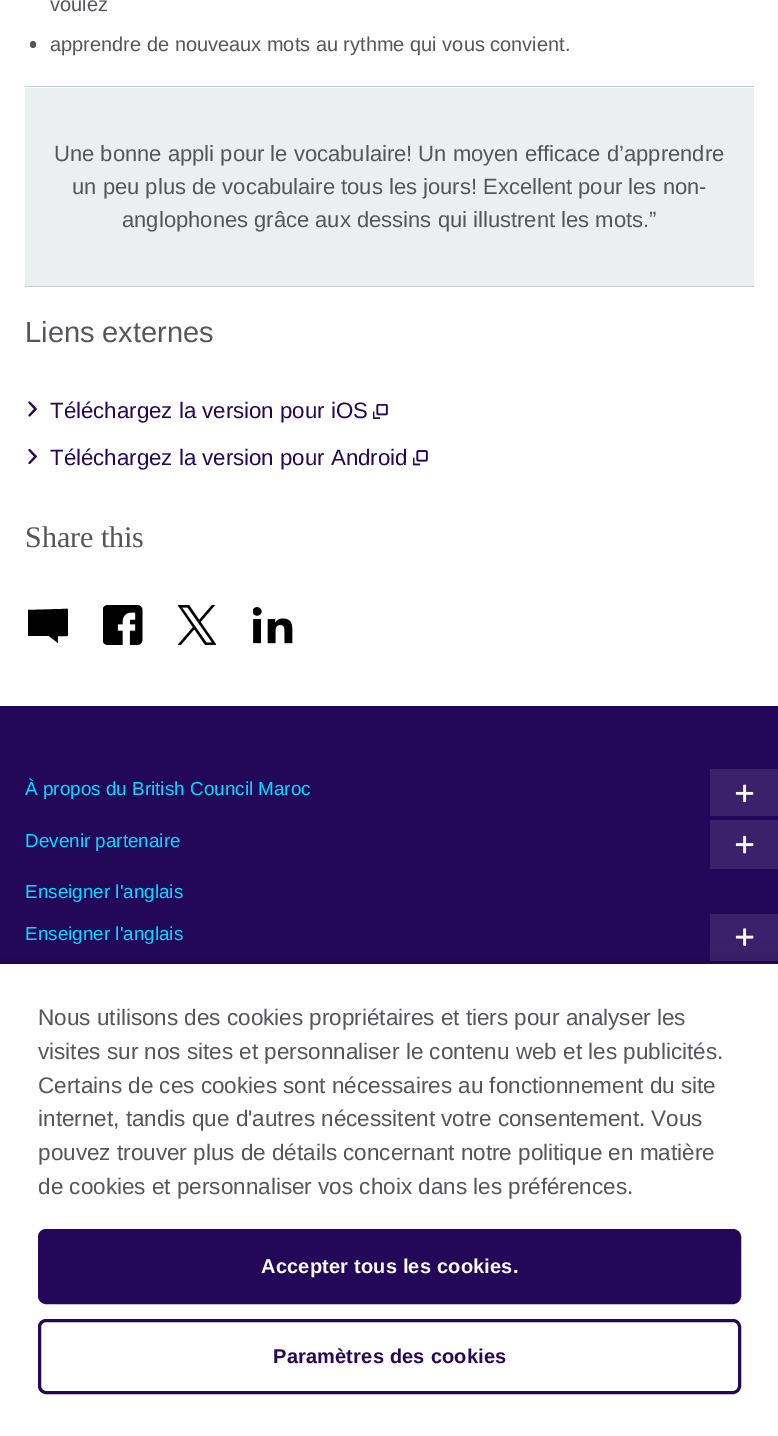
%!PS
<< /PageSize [778 1436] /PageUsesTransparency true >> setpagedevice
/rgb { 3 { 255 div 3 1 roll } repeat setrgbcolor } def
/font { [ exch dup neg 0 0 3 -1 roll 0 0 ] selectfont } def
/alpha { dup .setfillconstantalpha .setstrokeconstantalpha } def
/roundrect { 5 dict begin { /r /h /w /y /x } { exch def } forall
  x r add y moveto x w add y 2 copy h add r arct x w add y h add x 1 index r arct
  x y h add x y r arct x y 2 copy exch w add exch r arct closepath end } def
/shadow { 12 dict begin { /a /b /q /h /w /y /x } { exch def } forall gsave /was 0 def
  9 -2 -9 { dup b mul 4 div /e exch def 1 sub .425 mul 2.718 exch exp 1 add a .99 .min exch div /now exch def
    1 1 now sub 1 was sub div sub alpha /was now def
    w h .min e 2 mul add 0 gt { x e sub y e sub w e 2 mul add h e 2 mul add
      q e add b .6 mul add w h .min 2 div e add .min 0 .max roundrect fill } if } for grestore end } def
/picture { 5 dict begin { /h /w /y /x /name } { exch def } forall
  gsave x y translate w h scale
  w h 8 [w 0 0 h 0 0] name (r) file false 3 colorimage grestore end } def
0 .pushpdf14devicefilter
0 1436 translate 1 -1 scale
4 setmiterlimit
255 255 255 rgb
0 0 778 1436 rectfill
84 86 90 rgb
30 41 6 7 3 roundrect fill
[
  [25 88 729 198 235 239 240]
  [25 86 729 1 194 203 206]
  [25 286 729 1 194 203 206]
] { aload pop rgb rectfill } forall
(img/1.rgb) 28 401 9 16 picture
(img/2.rgb) 373 404 15 15 picture
(img/3.rgb) 28 449 9 15 picture
(img/4.rgb) 413 450 15 16 picture
gsave
28 605 40 40 rectclip
0 0 0 rgb
28 610 moveto 61 609 lineto 69 609 68 607 68 614 curveto 68 622 lineto 68 639 71 636 58 636 curveto 58 643 lineto 49 636 lineto 28 636 lineto closepath fill
grestore
(img/5.rgb) 103 605 40 40 picture
(img/6.rgb) 178 605 38 40 picture
(img/7.rgb) 253 607 40 37 picture
35 8 90 rgb
0 706 778 258 rectfill
57 33 107 rgb
710 769 68 47 rectfill
(img/8.rgb) 735 784 19 19 picture
710 820 68 49 rectfill
(img/9.rgb) 735 835 19 19 picture
710 914 68 47 rectfill
(img/10.rgb) 735 928 19 18 picture
0 0 0 rgb
0 964 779 472 0 11 0.2 shadow
255 255 255 rgb
0 964 778 472 rectfill
35 8 90 rgb
39.5 1230.5 700 72 6.5 roundrect gsave fill grestore
3 setlinewidth
stroke
39.5 1320.5 700 72 6.5 roundrect stroke
/LiberationSans-Regular 20 font
84 86 90 rgb
50 11 moveto (voulez) show
50 51 moveto (apprendre de nouveaux mots au rythme qui vous convient.) show
/LiberationSans-Regular 22 font
[
  [(Une bonne appli pour le vocabulaire! Un moyen efficace d’apprendre) 54 161]
  [(un peu plus de vocabulaire tous les jours! Excellent pour les non-) 72 194]
  [(anglophones grâce aux dessins qui illustrent les mots.”) 122 227]
] { aload pop moveto show } forall
/LiberationSans-Regular 29 font
25 342 moveto (Liens externes) show
/LiberationSans-Regular 22.25 font
35 8 90 rgb
50 418 moveto (Téléchargez la version pour iOS) show
50 465 moveto (Téléchargez la version pour Android) show
/LiberationSerif-Regular 30 font
84 86 90 rgb
25 547 moveto (Share this) show
/LiberationSans-Regular 18.9 font
0 220 255 rgb
[
  [(À propos du British Council Maroc) 25 795]
  [(Devenir partenaire) 25 847]
  [(Enseigner l'anglais) 25 898]
  [(Enseigner l'anglais) 25 940]
] { aload pop moveto show } forall
/LiberationSans-Regular 22.5 font
84 86 90 rgb
[
  [(Nous utilisons des cookies propriétaires et tiers pour analyser les) 38 1025]
  [(visites sur nos sites et personnaliser le contenu web et les publicités.) 38 1059]
  [(Certains de ces cookies sont nécessaires au fonctionnement du site) 38 1093]
  [(internet, tandis que d'autres nécessitent votre consentement. Vous) 38 1126]
  [(pouvez trouver plus de détails concernant notre politique en matière) 38 1160]
  [(de cookies et personnaliser vos choix dans les préférences.) 38 1194]
] { aload pop moveto show } forall
/LiberationSans-Bold 20 font
255 255 255 rgb
261 1273 moveto 0.2 0 (Accepter tous les cookies.) ashow
35 8 90 rgb
273 1363 moveto 0.2 0 (Paramètres des cookies) ashow
.poppdf14devicefilter showpage
